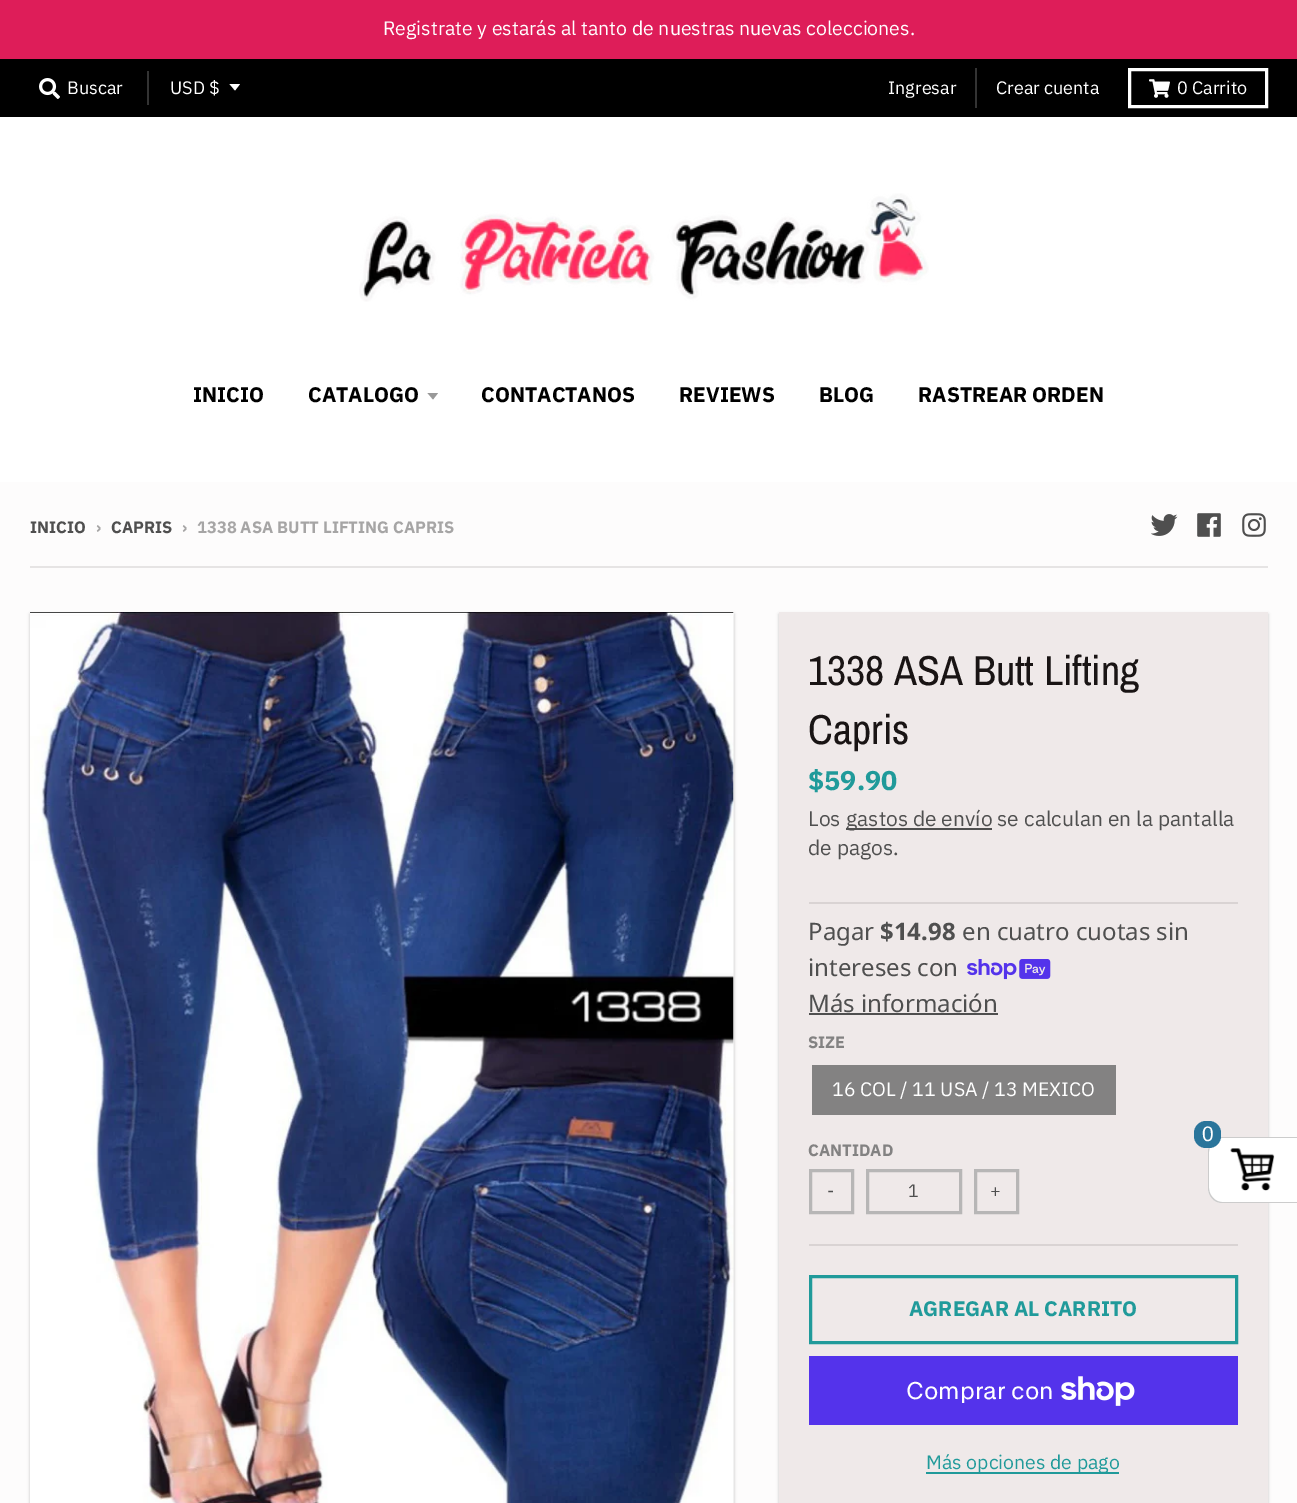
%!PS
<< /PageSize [1297 1503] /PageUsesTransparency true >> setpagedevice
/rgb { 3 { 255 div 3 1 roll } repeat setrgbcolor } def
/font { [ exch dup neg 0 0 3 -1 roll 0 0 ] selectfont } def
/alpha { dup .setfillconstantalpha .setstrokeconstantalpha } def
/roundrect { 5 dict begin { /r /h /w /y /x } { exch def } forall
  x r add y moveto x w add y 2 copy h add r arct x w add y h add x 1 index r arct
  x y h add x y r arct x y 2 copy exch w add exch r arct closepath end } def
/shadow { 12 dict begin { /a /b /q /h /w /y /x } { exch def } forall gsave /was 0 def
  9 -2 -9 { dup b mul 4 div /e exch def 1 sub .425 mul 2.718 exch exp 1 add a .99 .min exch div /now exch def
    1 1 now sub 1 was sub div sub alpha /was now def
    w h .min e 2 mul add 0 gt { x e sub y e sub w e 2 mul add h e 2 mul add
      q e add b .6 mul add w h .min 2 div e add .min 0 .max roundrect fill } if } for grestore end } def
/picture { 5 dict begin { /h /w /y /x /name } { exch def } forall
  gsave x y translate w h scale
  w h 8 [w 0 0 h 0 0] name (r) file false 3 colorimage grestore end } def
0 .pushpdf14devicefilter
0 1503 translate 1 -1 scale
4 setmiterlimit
253 252 252 rgb
0 0 1297 1503 rectfill
222 29 89 rgb
0 0 1297 59 rectfill
0 0 0 rgb
0 59 1297 58 rectfill
(img/1.rgb) 39 78 21 21 picture
51 51 51 rgb
147 71 2 34 rectfill
255 255 255 rgb
229.5 84 moveto 235 90.5 lineto 240 84 lineto closepath fill
51 51 51 rgb
975 68 2 40 rectfill
255 255 255 rgb
3 setlinewidth
1129.5 69.5 137 37 rectstroke
(img/2.rgb) 1149 79 21 19 picture
0 117 1297 365 rectfill
(img/3.rgb) 359 193 570 109 picture
153 153 153 rgb
427.5 393 moveto 433 399.5 lineto 438 393 lineto closepath fill
(img/4.rgb) 1151 514 27 22 picture
(img/5.rgb) 1197 513 24 24 picture
(img/6.rgb) 1242 513 24 24 picture
230 228 228 rgb
30 566 1238 2 rectfill
gsave
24 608 moveto 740 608 lineto 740 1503 lineto 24 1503 lineto closepath 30 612 moveto 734 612 lineto 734 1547 lineto 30 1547 lineto closepath eoclip newpath
0 0 0 rgb
30 614 704 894 0 1.5 0.2 shadow
grestore
(img/7.rgb) 30 612 704 891 picture
0 0 0 rgb
779 614 489 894 0 1.5 0.2 shadow
[
  [779 612 489 891 239 233 233]
  [809 902 429 2 217 211 211]
  [846 828 146 2 79 79 79]
] { aload pop rgb rectfill } forall
(img/8.rgb) 967 959 84 21 picture
[
  [809 1013 189 2 79 79 79]
  [809 1244 429 2 217 211 211]
  [812 1065 304 50 131 130 130]
] { aload pop rgb rectfill } forall
183 182 182 rgb
810.5 1170.5 42 42 rectstroke
867.5 1170.5 93 42 rectstroke
975.5 1170.5 42 42 rectstroke
32 154 154 rgb
810.5 1276.5 426 66 rectstroke
84 51 235 rgb
809 1356 429 69 rectfill
(img/9.rgb) 1061 1376 74 30 picture
32 154 154 rgb
926 1472 193 2 rectfill
255 255 255 rgb
1223 1137 moveto 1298 1137 lineto 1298 1203 lineto 1223 1203 lineto 1214.5 1203 1208 1196.5 1208 1188 curveto 1208 1152 lineto 1208 1143.5 1214.5 1137 1223 1137 curveto closepath fill
(img/10.rgb) 1230 1148 45 43 picture
204 204 204 rgb
1222 1137 moveto 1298 1137 lineto 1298 1203 lineto 1222 1203 lineto 1214 1203 1208 1196 1208 1188 curveto 1208 1152 lineto 1208 1144 1214 1137 1222 1137 curveto closepath 1222 1138 moveto 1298 1138 lineto 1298 1202 lineto 1222 1202 lineto 1215 1202 1209 1195 1209 1188 curveto 1209 1152 lineto 1209 1145 1215 1138 1222 1138 curveto closepath eofill
42 117 155 rgb
1194 1121 27 27 12 roundrect fill
/IBMPlexSans-Regular 19.5 font
255 255 255 rgb
383 35 moveto (Registrate y estarás al tanto de nuestras nuevas colecciones.) show
/IBMPlexSans-Regular 18 font
[
  [(Buscar) 67 94]
  [(USD $) 170 94]
  [(Ingresar) 888 94]
  [(Crear cuenta) 996 94]
  [(0 Carrito) 1177 94]
] { aload pop moveto show } forall
/IBMPlexSans-Bold 21 font
0 0 0 rgb
[
  [(INICIO) 193 402]
  [(CATALOGO) 308 402]
  [(CONTACTANOS) 481 402]
  [(REVIEWS) 679 402]
  [(BLOG) 819 402]
  [(RASTREAR ORDEN) 918 402]
] { aload pop moveto show } forall
/IBMPlexSans-Bold 16.5 font
79 79 79 rgb
30 533 moveto (INICIO) show
166 165 165 rgb
96 533 moveto (›) show
79 79 79 rgb
111 533 moveto (CAPRIS) show
166 165 165 rgb
182 533 moveto (›) show
197 533 moveto (1338 ASA BUTT LIFTING CAPRIS) show
/ArchivoNarrow-Regular 42 font
25 20 20 rgb
808 685 moveto (1338 ASA Butt Lifting) show
808 744 moveto (Capris) show
/IBMPlexSans-Bold 27 font
32 154 154 rgb
808 790 moveto ($59.90) show
/IBMPlexSans-Regular 21 font
79 79 79 rgb
[
  [(Los) 808 826]
  [(gastos de envío se calculan en la pantalla) 846 826]
  [(de pagos.) 808 855]
] { aload pop moveto show } forall
/NotoSans-Regular 24 font
808 940 moveto (Pagar) show
/NotoSans-Bold 24 font
880 940 moveto ($14.98) show
/NotoSans-Regular 24 font
[
  [(en cuatro cuotas sin) 962 940]
  [(intereses con) 808 976]
  [(Más información) 808 1012]
] { aload pop moveto show } forall
/IBMPlexSans-Bold 16.5 font
131 130 130 rgb
808 1048 moveto (SIZE) show
/IBMPlexSans-Regular 19.5 font
255 255 255 rgb
832 1096 moveto (16 COL / 11 USA / 13 MEXICO) show
/IBMPlexSans-Bold 16.5 font
131 130 130 rgb
808 1156 moveto (CANTIDAD) show
/IBMPlexSans-Regular 18 font
79 79 79 rgb
[
  [(-) 827 1197]
  [(1) 908 1197]
  [(+) 990 1197]
] { aload pop moveto show } forall
/IBMPlexSans-Bold 21 font
32 154 154 rgb
909 1316 moveto (AGREGAR AL CARRITO) show
/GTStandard-Regular 24 font
255 255 255 rgb
906 1399 moveto (Comprar con) show
/IBMPlexSans-Regular 19.5 font
32 154 154 rgb
926 1469 moveto (Más opciones de pago) show
/LiberationSans-Regular 21 font
255 255 255 rgb
1202 1141 moveto (0) show
.poppdf14devicefilter showpage
